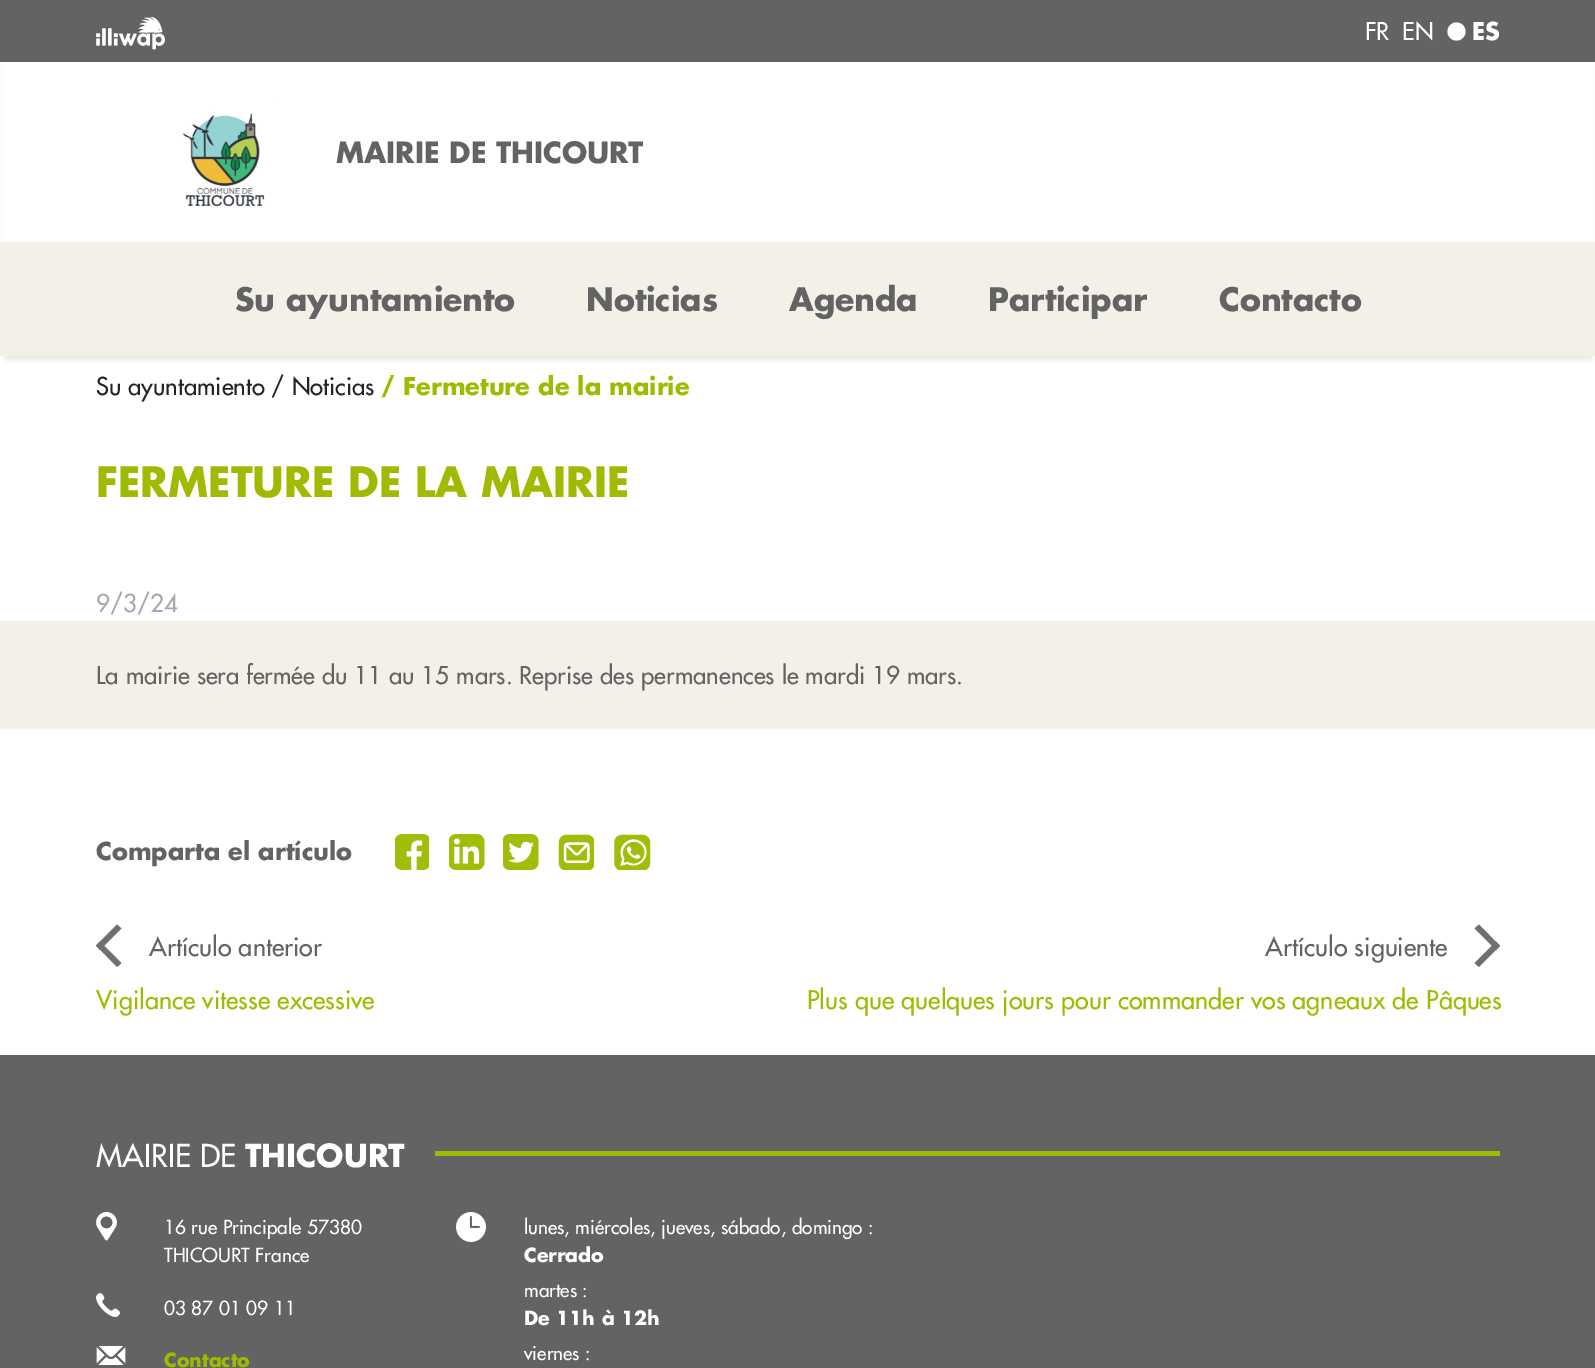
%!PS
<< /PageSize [1595 1368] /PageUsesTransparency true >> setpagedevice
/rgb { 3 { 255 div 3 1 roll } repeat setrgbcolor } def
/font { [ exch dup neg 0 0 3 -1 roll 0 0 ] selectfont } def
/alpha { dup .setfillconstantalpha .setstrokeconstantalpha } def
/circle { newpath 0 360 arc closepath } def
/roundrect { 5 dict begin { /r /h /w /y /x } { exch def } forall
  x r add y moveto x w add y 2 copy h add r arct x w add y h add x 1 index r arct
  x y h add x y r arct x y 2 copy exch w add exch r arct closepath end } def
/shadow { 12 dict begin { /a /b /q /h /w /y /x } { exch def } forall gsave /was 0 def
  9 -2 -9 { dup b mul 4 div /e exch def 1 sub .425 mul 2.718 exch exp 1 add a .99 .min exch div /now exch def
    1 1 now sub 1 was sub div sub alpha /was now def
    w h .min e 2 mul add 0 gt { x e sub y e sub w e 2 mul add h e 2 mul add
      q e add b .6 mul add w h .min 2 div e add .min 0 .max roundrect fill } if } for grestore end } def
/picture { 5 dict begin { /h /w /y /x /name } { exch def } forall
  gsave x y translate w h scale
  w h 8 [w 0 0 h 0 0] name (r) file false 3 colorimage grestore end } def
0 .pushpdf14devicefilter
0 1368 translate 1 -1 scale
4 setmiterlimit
255 255 255 rgb
0 0 1595 1368 rectfill
0 0 0 rgb
5 14 1587 346 0 2 0.08 shadow
255 255 255 rgb
3 62 1591 180 rectfill
100 99 99 rgb
0 0 1595 62 rectfill
(img/1.rgb) 96 17 69 33 picture
255 255 255 rgb
1456.5 31.5 9 circle fill
(img/2.rgb) 182 97 96 111 picture
243 240 232 rgb
0 242 1595 114 rectfill
0 621 1595 108 rectfill
(img/3.rgb) 395 834 34 36 picture
(img/4.rgb) 449 834 36 36 picture
(img/5.rgb) 503 834 36 36 picture
(img/6.rgb) 558 834 36 36 picture
(img/7.rgb) 614 834 37 36 picture
112 112 112 rgb
117 967 moveto 96 945.5 lineto 100 941.5 lineto 121.5 963 lineto closepath fill
96 945.5 moveto 117 924.5 lineto 121.5 928.5 lineto 100 950 lineto closepath fill
1479 924.5 moveto 1500 946 lineto 1496 950 lineto 1474.5 928.5 lineto closepath fill
1500 946 moveto 1479 967 lineto 1474.5 963 lineto 1496 941.5 lineto closepath fill
100 99 99 rgb
0 1055 1595 313 rectfill
159 186 0 rgb
435 1151 1065 5 rectfill
(img/8.rgb) 96 1212 21 29 picture
(img/9.rgb) 96 1293 24 24 picture
(img/10.rgb) 96 1346 30 19 picture
(img/11.rgb) 456 1212 30 30 picture
/Futura-Regular 24 font
255 255 255 rgb
1365 40 moveto (FR) show
1402 40 moveto (EN) show
/Futura-Bold 24 font
1472 40 moveto (ES) show
/Futura-Bold 28.4 font
100 99 99 rgb
336 163 moveto (MAIRIE DE THICOURT) show
/Futura-Bold 31.5 font
[
  [(Su ayuntamiento) 235 311]
  [(Noticias) 586 311]
  [(Agenda) 789 311]
  [(Participar) 988 311]
  [(Contacto) 1219 311]
] { aload pop moveto show } forall
/Futura-Regular 24 font
33 37 41 rgb
96 395 moveto (Su ayuntamiento / Noticias) show
/Futura-Bold 24 font
159 186 0 rgb
381 395 moveto (/ Fermeture de la mairie) show
/Futura-Bold 40.75 font
96 497 moveto (FERMETURE DE LA MAIRIE) show
/Futura-Regular 24 font
168 168 168 rgb
96 612 moveto (9/3/24) show
100 99 99 rgb
96 684 moveto (La mairie sera fermée du 11 au 15 mars. Reprise des permanences le mardi 19 mars.) show
/Futura-Bold 24 font
96 860 moveto (Comparta el artículo) show
/Futura-Regular 25.2 font
149 956 moveto (Artículo anterior) show
1265 956 moveto (Artículo siguiente) show
159 186 0 rgb
96 1009 moveto (Vigilance vitesse excessive) show
807 1009 moveto (Plus que quelques jours pour commander vos agneaux de Pâques) show
/Futura-Regular 30.75 font
255 255 255 rgb
96 1167 moveto (MAIRIE DE) show
/Futura-Bold 30.75 font
245 1167 moveto (THICOURT) show
/Futura-Regular 19 font
[
  [(16 rue Principale 57380) 164 1234]
  [(THICOURT France) 164 1262]
  [(03 87 01 09 11) 164 1315]
] { aload pop moveto show } forall
/Futura-Bold 19 font
159 186 0 rgb
164 1367 moveto (Contacto) show
/Futura-Regular 19 font
255 255 255 rgb
524 1234 moveto (lunes, miércoles, jueves, sábado, domingo :) show
/Futura-Bold 19 font
524 1262 moveto (Cerrado) show
/Futura-Regular 19 font
524 1297 moveto (martes :) show
/Futura-Bold 19 font
524 1325 moveto (De 11h à 12h) show
/Futura-Regular 19 font
524 1360 moveto (viernes :) show
.poppdf14devicefilter showpage
